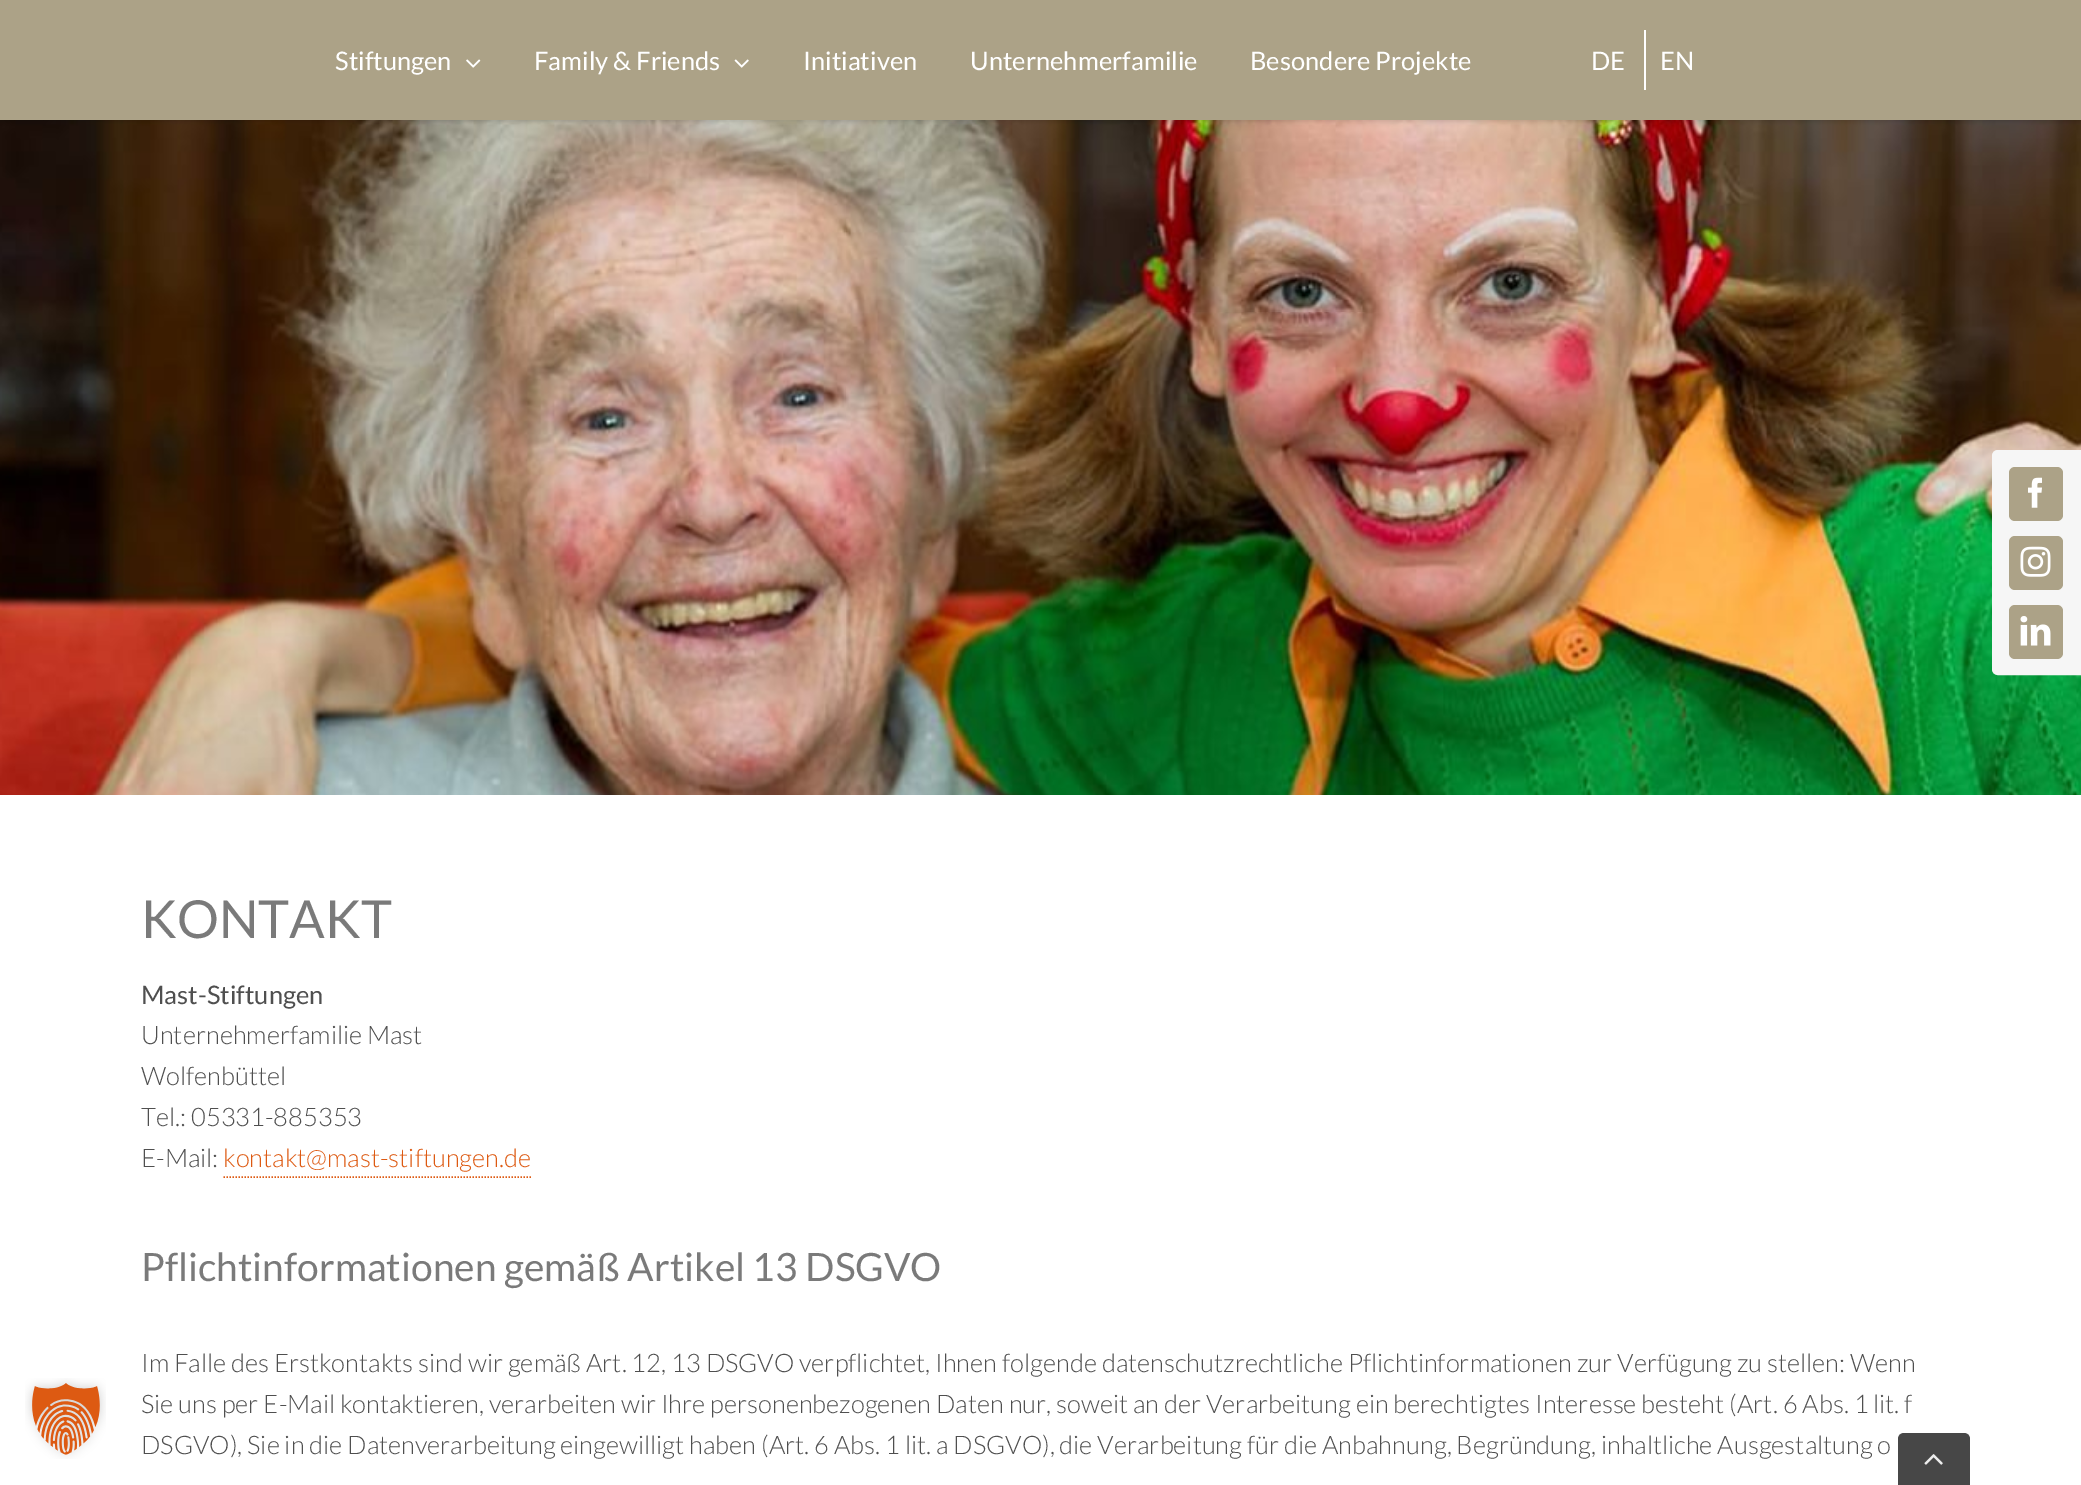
%!PS
<< /PageSize [2081 1485] /PageUsesTransparency true >> setpagedevice
/rgb { 3 { 255 div 3 1 roll } repeat setrgbcolor } def
/font { [ exch dup neg 0 0 3 -1 roll 0 0 ] selectfont } def
/alpha { dup .setfillconstantalpha .setstrokeconstantalpha } def
/roundrect { 5 dict begin { /r /h /w /y /x } { exch def } forall
  x r add y moveto x w add y 2 copy h add r arct x w add y h add x 1 index r arct
  x y h add x y r arct x y 2 copy exch w add exch r arct closepath end } def
/shadow { 12 dict begin { /a /b /q /h /w /y /x } { exch def } forall gsave /was 0 def
  9 -2 -9 { dup b mul 4 div /e exch def 1 sub .425 mul 2.718 exch exp 1 add a .99 .min exch div /now exch def
    1 1 now sub 1 was sub div sub alpha /was now def
    w h .min e 2 mul add 0 gt { x e sub y e sub w e 2 mul add h e 2 mul add
      q e add b .6 mul add w h .min 2 div e add .min 0 .max roundrect fill } if } for grestore end } def
/picture { 5 dict begin { /h /w /y /x /name } { exch def } forall
  gsave x y translate w h scale
  w h 8 [w 0 0 h 0 0] name (r) file false 3 colorimage grestore end } def
0 .pushpdf14devicefilter
0 1485 translate 1 -1 scale
4 setmiterlimit
255 255 255 rgb
0 0 2081 1485 rectfill
(img/3.rgb) 0 120 2081 675 picture
0 0 0 rgb
0 2 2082 120 0 2 0.12 shadow
172 162 135 rgb
0 0 2081 120 rectfill
(img/1.rgb) 466 59 15 9 picture
(img/2.rgb) 734 59 15 9 picture
255 255 255 rgb
1644 30 2 60 rectfill
221 90 18 rgb
1.5 setlinewidth
[1.5 1.5] 0 setdash
223.5 1177 moveto 531 1177 lineto stroke
246 246 246 rgb
1998 451 moveto 2081 451 lineto 2081 674 lineto 1998 674 lineto 1995 674 1993 672 1993 669 curveto 1993 456 lineto 1993 453 1995 451 1998 451 curveto closepath gsave fill grestore
2 setlinewidth
[] 0 setdash
stroke
172 162 135 rgb
2009 467 54 54 6 roundrect fill
(img/4.rgb) 2028 477 14 31 picture
2009 536 54 54 6 roundrect fill
(img/5.rgb) 2020 546 31 31 picture
2009 605 54 54 6 roundrect fill
(img/6.rgb) 2020 616 31 30 picture
(img/7.rgb) 25 1378 81 81 picture
0.9 alpha
51 51 51 rgb
1904 1433 moveto 1964 1433 lineto 1967.5 1433 1970 1435.5 1970 1439 curveto 1970 1485 lineto 1898 1485 lineto 1898 1439 lineto 1898 1435.5 1900.5 1433 1904 1433 curveto closepath fill
1 alpha
(img/8.rgb) 1924 1454 19 11 picture
/Lato-Regular 25.5 font
255 255 255 rgb
[
  [(Stiftungen) 335 70]
  [(Family & Friends) 534 70]
  [(Initiativen) 803 70]
  [(Unternehmerfamilie) 970 70]
  [(Besondere Projekte) 1250 70]
  [(DE) 1591 70]
  [(EN) 1660 70]
] { aload pop moveto show } forall
/Lato-Regular 52.5 font
122 122 122 rgb
141 938 moveto (KONTAKT) show
/Lato-Regular 25.5 font
79 79 79 rgb
141 1004 moveto (Mast-Stiftungen) show
/Lato-Light 25.5 font
[
  [(Unternehmerfamilie Mast) 141 1044]
  [(Wolfenbüttel) 141 1085]
  [(Tel.: 05331-885353) 141 1126]
  [(E-Mail:) 141 1167]
] { aload pop moveto show } forall
221 90 18 rgb
223 1167 moveto (kontakt@mast-stiftungen.de) show
/Lato-Regular 39 font
122 122 122 rgb
141 1281 moveto (Pflichtinformationen gemäß Artikel 13 DSGVO) show
/Lato-Light 25.5 font
79 79 79 rgb
[
  [(Im Falle des Erstkontakts sind wir gemäß Art. 12, 13 DSGVO verpflichtet, Ihnen folgende datenschutzrechtliche Pflichtinformationen zur Verfügung zu stellen: Wenn) 141 1372]
  [(Sie uns per E-Mail kontaktieren, verarbeiten wir Ihre personenbezogenen Daten nur, soweit an der Verarbeitung ein berechtigtes Interesse besteht \(Art. 6 Abs. 1 lit. f) 141 1413]
  [(DSGVO\), Sie in die Datenverarbeitung eingewilligt haben \(Art. 6 Abs. 1 lit. a DSGVO\), die Verarbeitung für die Anbahnung, Begründung, inhaltliche Ausgestaltung o) 141 1454]
] { aload pop moveto show } forall
.poppdf14devicefilter showpage
